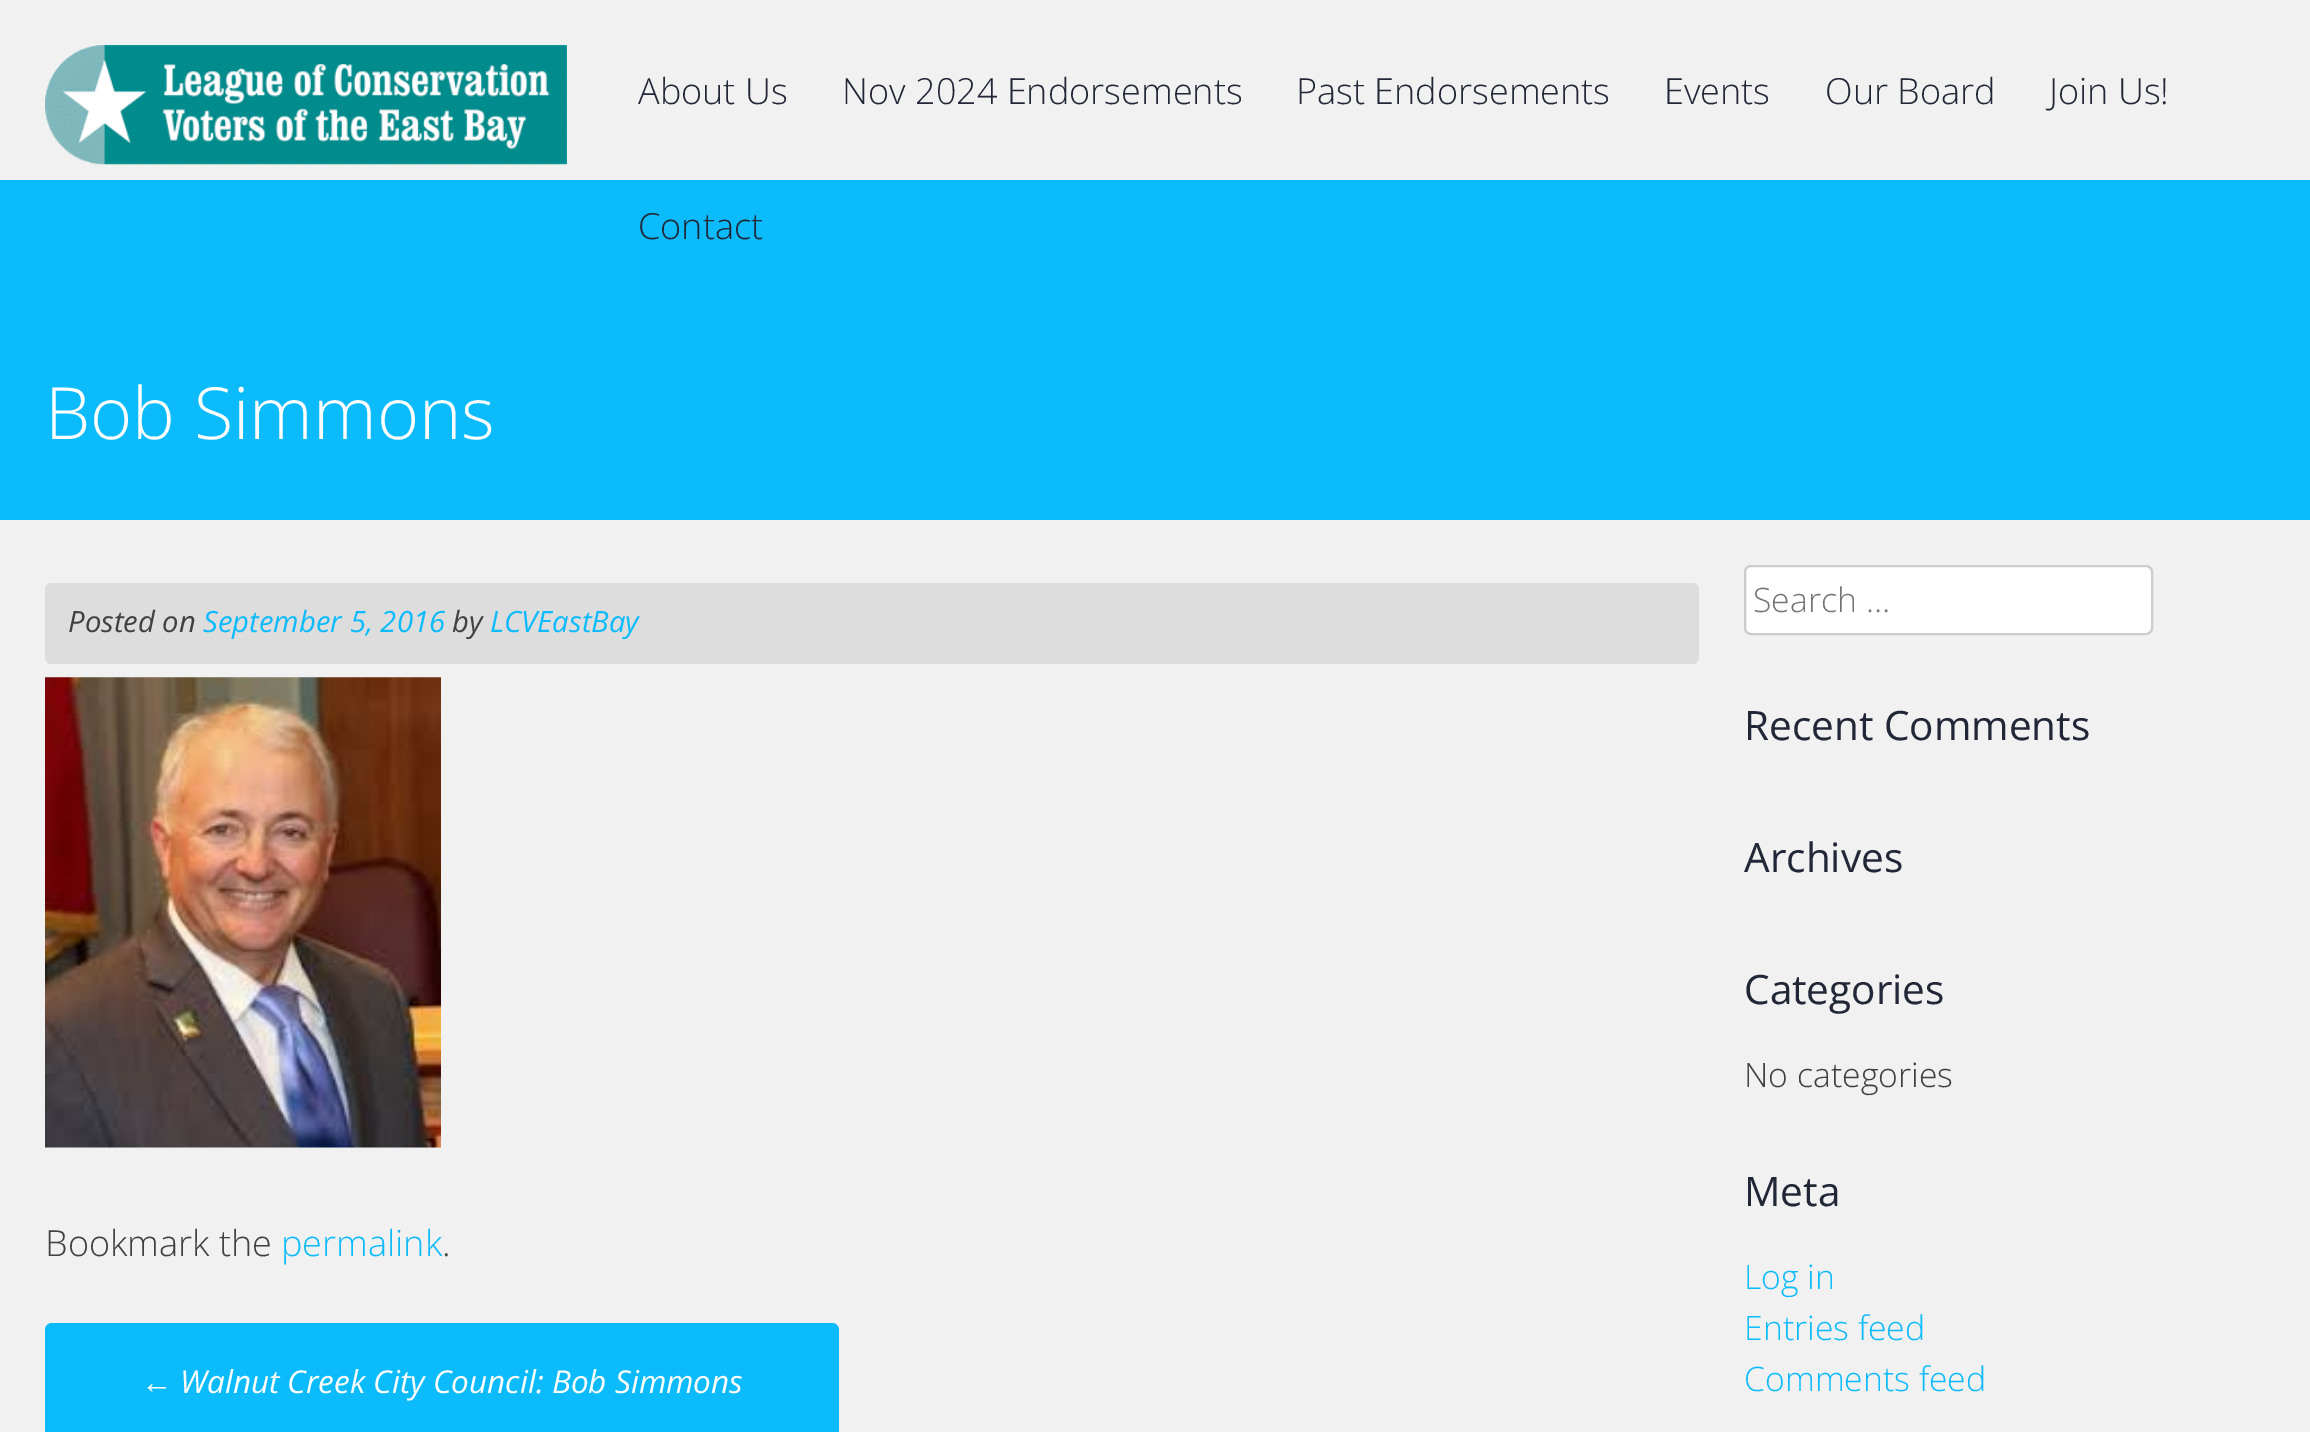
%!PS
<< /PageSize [2310 1432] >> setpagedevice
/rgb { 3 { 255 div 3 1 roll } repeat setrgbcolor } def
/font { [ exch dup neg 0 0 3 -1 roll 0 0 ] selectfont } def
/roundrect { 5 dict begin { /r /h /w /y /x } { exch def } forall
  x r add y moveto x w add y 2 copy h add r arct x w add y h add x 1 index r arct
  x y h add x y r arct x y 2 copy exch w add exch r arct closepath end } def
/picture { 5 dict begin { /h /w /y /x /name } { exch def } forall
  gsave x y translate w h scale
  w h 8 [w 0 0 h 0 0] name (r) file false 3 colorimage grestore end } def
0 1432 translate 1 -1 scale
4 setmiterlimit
241 241 241 rgb
0 0 2310 1432 rectfill
(img/1.rgb) 45 45 522 120 picture
12 187 252 rgb
0 180 2310 340 rectfill
221 221 221 rgb
45 583 1654 81 7 roundrect fill
(img/2.rgb) 45 677 396 471 picture
12 187 252 rgb
45 1323 794 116 7 roundrect fill
255 255 255 rgb
1745 566 407 68 6 roundrect gsave fill grestore
204 204 204 rgb
2 setlinewidth
stroke
/OpenSans-Light 36 font
33 39 55 rgb
[
  [(About Us) 638 104]
  [(Nov 2024 Endorsements) 842 104]
  [(Past Endorsements) 1296 104]
  [(Events) 1664 104]
  [(Our Board) 1825 104]
  [(Join Us!) 2049 104]
  [(Contact) 638 239]
] { aload pop moveto show } forall
/OpenSans-Light 72 font
255 255 255 rgb
45 439 moveto (Bob Simmons) show
/OpenSans-Italic 29.25 font
64 64 64 rgb
68 632 moveto (Posted on) show
12 187 252 rgb
203 632 moveto (September 5, 2016) show
64 64 64 rgb
452 632 moveto (by) show
12 187 252 rgb
490 632 moveto (LCVEastBay) show
/OpenSans-Light 36 font
64 64 64 rgb
45 1256 moveto (Bookmark the) show
12 187 252 rgb
281 1256 moveto (permalink) show
64 64 64 rgb
442 1256 moveto (.) show
/LiberationSans-Italic 31.5 font
255 255 255 rgb
141 1393 moveto (←) show
/OpenSans-Italic 31.5 font
180 1393 moveto (Walnut Creek City Council: Bob Simmons) show
/OpenSans-Light 33.75 font
117 117 117 rgb
1753 612 moveto (Search …) show
/OpenSans-Regular 40.5 font
33 39 55 rgb
[
  [(Recent Comments) 1744 740]
  [(Archives) 1744 872]
  [(Categories) 1744 1004]
] { aload pop moveto show } forall
/OpenSans-Light 33.75 font
64 64 64 rgb
1744 1087 moveto (No categories) show
/OpenSans-Regular 40.5 font
33 39 55 rgb
1744 1206 moveto (Meta) show
/OpenSans-Light 33.75 font
12 187 252 rgb
[
  [(Log in) 1744 1289]
  [(Entries feed) 1744 1340]
  [(Comments feed) 1744 1391]
] { aload pop moveto show } forall
showpage
